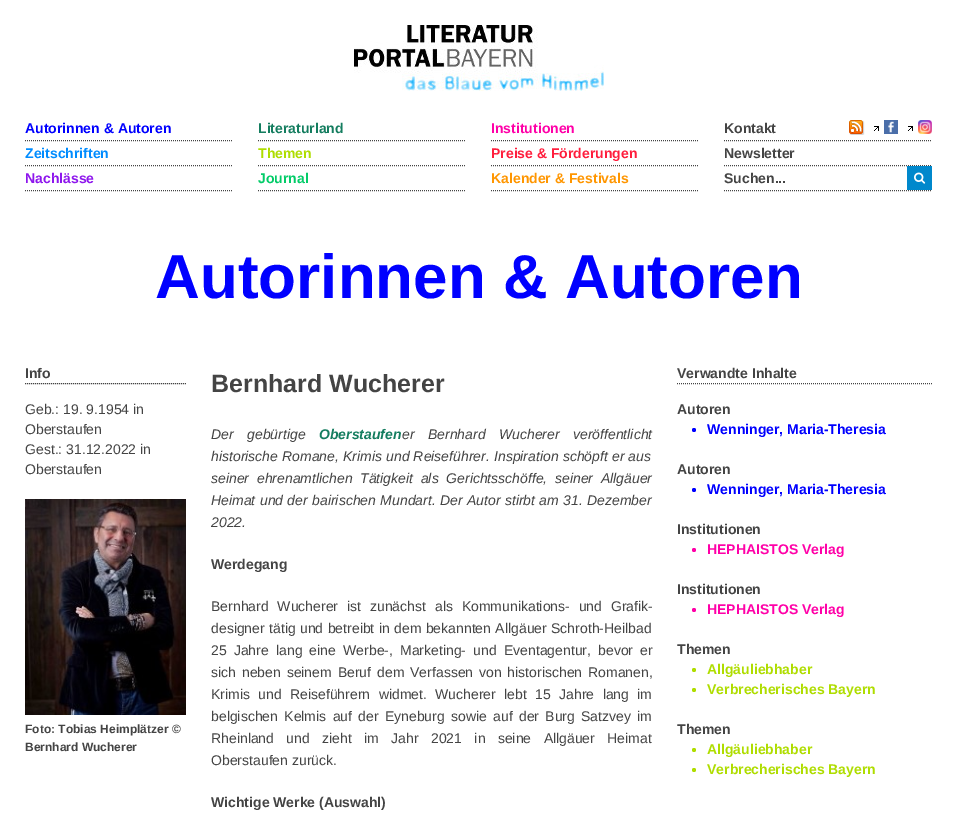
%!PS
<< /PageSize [957 834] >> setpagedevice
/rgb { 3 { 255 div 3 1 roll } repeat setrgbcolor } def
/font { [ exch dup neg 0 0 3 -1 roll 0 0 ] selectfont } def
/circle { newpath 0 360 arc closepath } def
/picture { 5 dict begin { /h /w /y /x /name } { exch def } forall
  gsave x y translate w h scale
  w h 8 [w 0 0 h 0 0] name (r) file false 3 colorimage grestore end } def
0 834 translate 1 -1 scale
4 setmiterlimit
255 255 255 rgb
0 0 957 834 rectfill
(img/1.rgb) 354 25 250 66 picture
68 68 68 rgb
[1 1] 0 setdash
25 140.5 moveto 233 140.5 lineto stroke
25 165.5 moveto 233 165.5 lineto stroke
25 190.5 moveto 233 190.5 lineto stroke
258 140.5 moveto 466 140.5 lineto stroke
258 165.5 moveto 466 165.5 lineto stroke
258 190.5 moveto 466 190.5 lineto stroke
491 140.5 moveto 699 140.5 lineto stroke
491 165.5 moveto 699 165.5 lineto stroke
491 190.5 moveto 699 190.5 lineto stroke
724 140.5 moveto 932 140.5 lineto stroke
(img/2.rgb) 849 120 16 15 picture
(img/3.rgb) 874 126 5 5 picture
(img/4.rgb) 884 120 14 14 picture
(img/3.rgb) 908 126 5 5 picture
(img/5.rgb) 918 120 14 14 picture
724 165.5 moveto 932 165.5 lineto stroke
724 190.5 moveto 932 190.5 lineto stroke
0 136 204 rgb
907 166 25 24 rectfill
(img/6.rgb) 914 172 12 12 picture
68 68 68 rgb
25 383.5 moveto 186 383.5 lineto stroke
(img/7.rgb) 25 499 161 216 picture
677 383.5 moveto 932 383.5 lineto stroke
0 0 255 rgb
694 430 2 circle fill
694 490 2 circle fill
255 0 168 rgb
694 550 2 circle fill
694 610 2 circle fill
175 221 0 rgb
694 670 2 circle fill
694 690 2 circle fill
694 750 2 circle fill
694 770 2 circle fill
/LiberationSans-Bold 14 font
0 0 255 rgb
25 133 moveto (Autorinnen & Autoren) show
0 140 255 rgb
25 158 moveto (Zeitschriften) show
142 22 237 rgb
25 183 moveto (Nachlässe) show
20 125 95 rgb
258 133 moveto (Literaturland) show
175 221 0 rgb
258 158 moveto (Themen) show
2 204 104 rgb
258 183 moveto (Journal) show
255 0 168 rgb
491 133 moveto (Institutionen) show
255 30 61 rgb
491 158 moveto (Preise & Förderungen) show
255 150 0 rgb
491 183 moveto (Kalender & Festivals) show
68 68 68 rgb
[
  [(Kontakt) 724 133]
  [(Newsletter) 724 158]
  [(Suchen...) 724 183]
] { aload pop moveto show } forall
/LiberationSans-Bold 62 font
0 0 255 rgb
155 298 moveto (Autorinnen & Autoren) show
/LiberationSans-Bold 14 font
68 68 68 rgb
25 378 moveto (Info) show
/LiberationSans-Regular 14 font
[
  [(Geb.: 19. 9.1954 in) 25 414]
  [(Oberstaufen) 25 434]
  [(Gest.: 31.12.2022 in) 25 454]
  [(Oberstaufen) 25 474]
] { aload pop moveto show } forall
/LiberationSans-Bold 12 font
25 733 moveto (Foto: Tobias Heimplätzer ©) show
25 751 moveto (Bernhard Wucherer) show
/LiberationSans-Bold 25 font
211 392 moveto (Bernhard Wucherer) show
/LiberationSans-Italic 14 font
211 439 moveto 9.5 0 32 (Der gebürtige) widthshow
/LiberationSans-BoldItalic 14 font
20 125 95 rgb
319 439 moveto (Oberstaufen) show
/LiberationSans-Italic 14 font
68 68 68 rgb
402 439 moveto 9.5 0 32 (er Bernhard Wucherer veröffentlicht) widthshow
211 461 moveto 0.25 0 32 (historische Romane, Krimis und Reiseführer. Inspiration schöpft er aus) widthshow
211 483 moveto 3.75 0 32 (seiner ehrenamtlichen Tätigkeit als Gerichtsschöffe, seiner Allgäuer) widthshow
211 505 moveto 0.5 0 32 (Heimat und der bairischen Mundart. Der Autor stirbt am 31. Dezember) widthshow
211 527 moveto (2022.) show
/LiberationSans-Bold 14 font
211 569 moveto (Werdegang) show
/LiberationSans-Regular 14 font
211 611 moveto 5 0 32 (Bernhard Wucherer ist zunächst als Kommunikations- und Grafik-) widthshow
211 633 moveto 0.5 0 32 (designer tätig und betreibt in dem bekannten Allgäuer Schroth-Heilbad) widthshow
211 655 moveto 3.25 0 32 (25 Jahre lang eine Werbe-, Marketing- und Eventagentur, bevor er) widthshow
211 677 moveto 2 0 32 (sich neben seinem Beruf dem Verfassen von historischen Romanen,) widthshow
211 699 moveto 4.5 0 32 (Krimis und Reiseführern widmet. Wucherer lebt 15 Jahre lang im) widthshow
211 721 moveto 2.4 0 32 (belgischen Kelmis auf der Eyneburg sowie auf der Burg Satzvey im) widthshow
211 743 moveto 8.5 0 32 (Rheinland und zieht im Jahr 2021 in seine Allgäuer Heimat) widthshow
211 765 moveto (Oberstaufen zurück.) show
/LiberationSans-Bold 14 font
[
  [(Wichtige Werke \(Auswahl\)) 211 807]
  [(Verwandte Inhalte) 677 378]
  [(Autoren) 677 414]
] { aload pop moveto show } forall
0 0 255 rgb
707 434 moveto (Wenninger, Maria-Theresia) show
68 68 68 rgb
677 474 moveto (Autoren) show
0 0 255 rgb
707 494 moveto (Wenninger, Maria-Theresia) show
68 68 68 rgb
677 534 moveto (Institutionen) show
255 0 168 rgb
707 554 moveto (HEPHAISTOS Verlag) show
68 68 68 rgb
677 594 moveto (Institutionen) show
255 0 168 rgb
707 614 moveto (HEPHAISTOS Verlag) show
68 68 68 rgb
677 654 moveto (Themen) show
175 221 0 rgb
707 674 moveto (Allgäuliebhaber) show
707 694 moveto (Verbrecherisches Bayern) show
68 68 68 rgb
677 734 moveto (Themen) show
175 221 0 rgb
707 754 moveto (Allgäuliebhaber) show
707 774 moveto (Verbrecherisches Bayern) show
showpage
